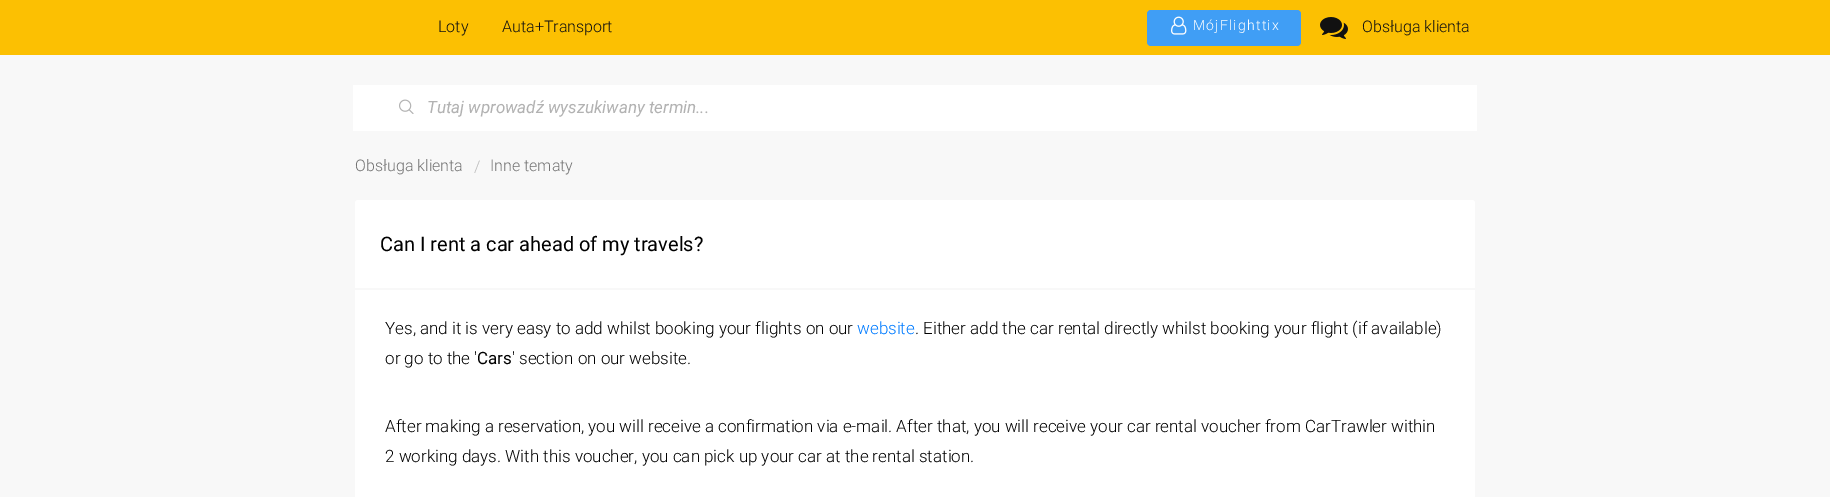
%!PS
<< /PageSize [1830 497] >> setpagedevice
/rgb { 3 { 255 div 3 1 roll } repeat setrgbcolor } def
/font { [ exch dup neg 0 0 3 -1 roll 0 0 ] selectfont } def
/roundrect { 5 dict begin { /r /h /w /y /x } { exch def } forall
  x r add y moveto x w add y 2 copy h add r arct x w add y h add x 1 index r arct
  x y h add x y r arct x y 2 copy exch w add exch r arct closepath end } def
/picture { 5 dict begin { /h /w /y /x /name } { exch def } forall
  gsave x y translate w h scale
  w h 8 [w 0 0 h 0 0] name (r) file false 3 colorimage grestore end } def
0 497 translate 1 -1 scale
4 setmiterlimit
248 248 248 rgb
0 0 1830 497 rectfill
252 192 2 rgb
0 0 1830 55 rectfill
64 158 245 rgb
1147 10 154 36 4 roundrect fill
(img/1.rgb) 1171 16 16 19 picture
(img/2.rgb) 1320 17 28 22 picture
255 255 255 rgb
353 85 1124 46 rectfill
(img/3.rgb) 399 99 15 15 picture
358 200 moveto 1472 200 lineto 1473.5 200 1475 201.5 1475 203 curveto 1475 290 lineto 355 290 lineto 355 203 lineto 355 201.5 356.5 200 358 200 curveto closepath fill
248 248 248 rgb
355 288 1120 2 rectfill
255 255 255 rgb
355 290 1120 207 rectfill
/Roboto-Light 16 font
17 17 17 rgb
438 32 moveto (Loty) show
502 32 moveto (Auta+Transport) show
/Roboto-Light 14 font
255 255 255 rgb
1193 30 moveto 1.25 0 (MójFlighttix) ashow
/Roboto-Light 16 font
17 17 17 rgb
1362 32 moveto (Obsługa klienta) show
/Roboto-Italic 17 font
178 178 178 rgb
427 113 moveto (Tutaj wprowadź wyszukiwany termin...) show
/Roboto-Light 16 font
116 116 116 rgb
355 171 moveto (Obsługa klienta) show
187 187 187 rgb
474 172 moveto (/) show
116 116 116 rgb
490 171 moveto (Inne tematy) show
/Roboto-Regular 20 font
0 0 0 rgb
380 251 moveto (Can I rent a car ahead of my travels?) show
/Roboto-Light 17 font
385 334 moveto (Yes, and it is very easy to add whilst booking your flights on our) show
0 123 255 rgb
857 334 moveto (website) show
0 0 0 rgb
915 334 moveto (. Either add the car rental directly whilst booking your flight \(if available\)) show
385 364 moveto (or go to the ') show
/Roboto-Regular 17 font
477 364 moveto (Cars) show
/Roboto-Light 17 font
[
  [(' section on our website.) 512 364]
  [(After making a reservation, you will receive a confirmation via e-mail. After that, you will receive your car rental voucher from CarTrawler within) 385 432]
  [(2 working days. With this voucher, you can pick up your car at the rental station.) 385 462]
] { aload pop moveto show } forall
showpage
